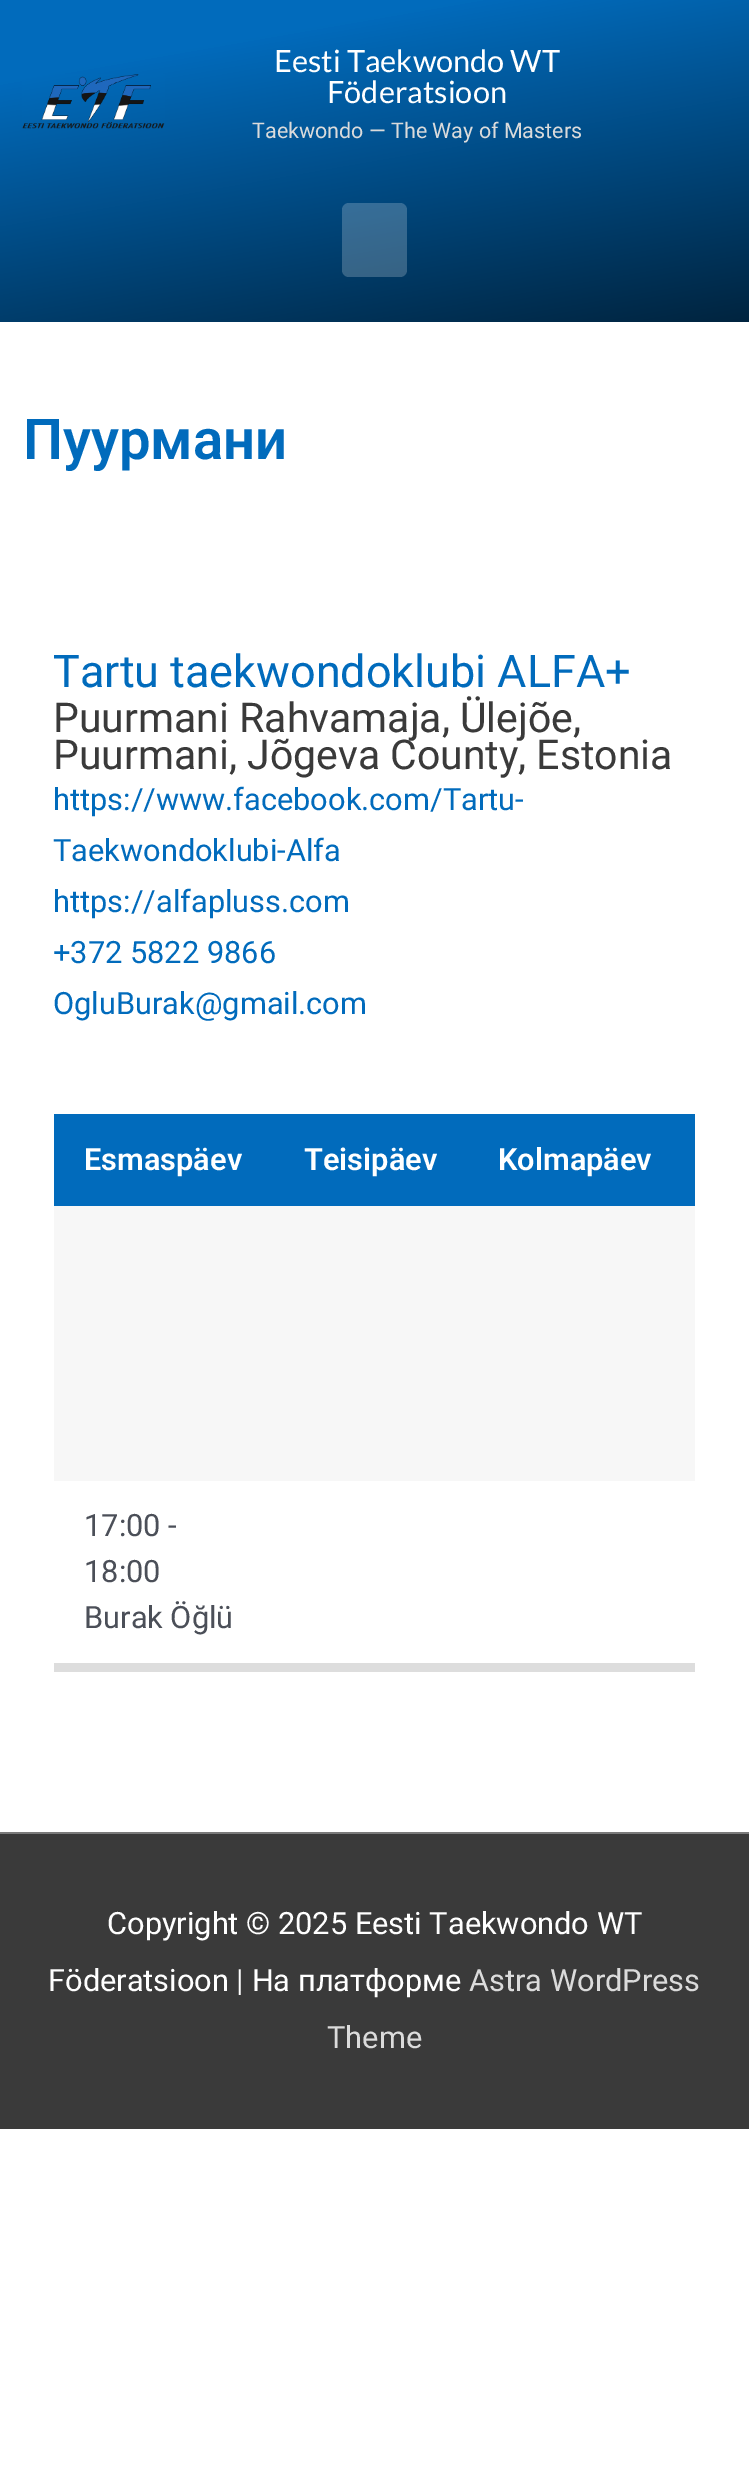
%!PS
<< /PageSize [749 2465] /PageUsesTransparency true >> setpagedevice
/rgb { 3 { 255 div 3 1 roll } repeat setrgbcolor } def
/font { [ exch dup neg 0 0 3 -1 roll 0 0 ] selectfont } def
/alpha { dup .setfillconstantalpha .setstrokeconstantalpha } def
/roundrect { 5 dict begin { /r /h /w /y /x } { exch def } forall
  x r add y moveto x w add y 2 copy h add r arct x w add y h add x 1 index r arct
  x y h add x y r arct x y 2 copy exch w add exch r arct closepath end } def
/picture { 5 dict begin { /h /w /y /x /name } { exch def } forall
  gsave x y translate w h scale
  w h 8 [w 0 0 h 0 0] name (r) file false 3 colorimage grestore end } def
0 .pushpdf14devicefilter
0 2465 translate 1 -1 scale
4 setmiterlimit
255 255 255 rgb
0 0 749 2465 rectfill
gsave 0 0 moveto 749 0 lineto 749 322 lineto 0 322 lineto closepath clip newpath
<< /ShadingType 2 /ColorSpace /DeviceRGB /Coords [413 381 336 -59] /Extend [true true] /Function << /FunctionType 3 /Domain [0 1] /Functions [<< /FunctionType 2 /Domain [0 1] /C0 [0 0.141 0.247] /C1 [0.004 0.42 0.737] /N 1 >> << /FunctionType 2 /Domain [0 1] /C0 [0.004 0.42 0.737] /C1 [0.004 0.42 0.737] /N 1 >>] /Bounds [0.82] /Encode [0 1 0 1] >> >> shfill grestore
(img/1.rgb) 22 74 143 55 picture
0.21 alpha
342 203 65 74 7 roundrect fill
1 alpha
[
  [54 1663 641 9 221 221 221]
  [54 1114 641 92 1 107 188]
  [54 1206 641 275 247 247 247]
  [0 1832 749 2 122 122 122]
  [0 1834 749 295 58 58 58]
] { aload pop rgb rectfill } forall
/Lato-Regular 30.75 font
255 255 255 rgb
274 72 moveto (Eesti Taekwondo WT) show
327 103 moveto (Föderatsioon) show
/Roboto-Regular 21.5 font
219 219 219 rgb
252 138 moveto (Taekwondo — The Way of Masters) show
/Roboto-SemiBold 56.25 font
1 107 188 rgb
23 459 moveto (Пуурмани) show
/Roboto-Regular 45 font
53 687 moveto (Tartu taekwondoklubi ALFA+) show
/Roboto-Regular 41 font
58 58 58 rgb
53 732 moveto (Puurmani Rahvamaja, Ülejõe,) show
53 769 moveto (Puurmani, Jõgeva County, Estonia) show
/Roboto-Regular 30.75 font
1 107 188 rgb
[
  [(https://www.facebook.com/Tartu-) 53 810]
  [(Taekwondoklubi-Alfa) 53 861]
  [(https://alfapluss.com) 53 912]
  [(+372 5822 9866) 53 963]
  [(OgluBurak@gmail.com) 53 1014]
] { aload pop moveto show } forall
/Roboto-SemiBold 30.75 font
255 255 255 rgb
[
  [(Esmaspäev) 84 1170]
  [(Teisipäev) 304 1170]
  [(Kolmapäev) 498 1170]
] { aload pop moveto show } forall
/Roboto-Regular 30.75 font
75 79 88 rgb
[
  [(17:00 -) 84 1536]
  [(18:00) 84 1582]
  [(Burak Öğlü) 84 1628]
] { aload pop moveto show } forall
255 255 255 rgb
107 1934 moveto (Copyright © 2025 Eesti Taekwondo WT) show
48 1991 moveto (Föderatsioon | На платформе) show
219 219 219 rgb
469 1991 moveto (Astra WordPress) show
327 2048 moveto (Theme) show
.poppdf14devicefilter showpage
